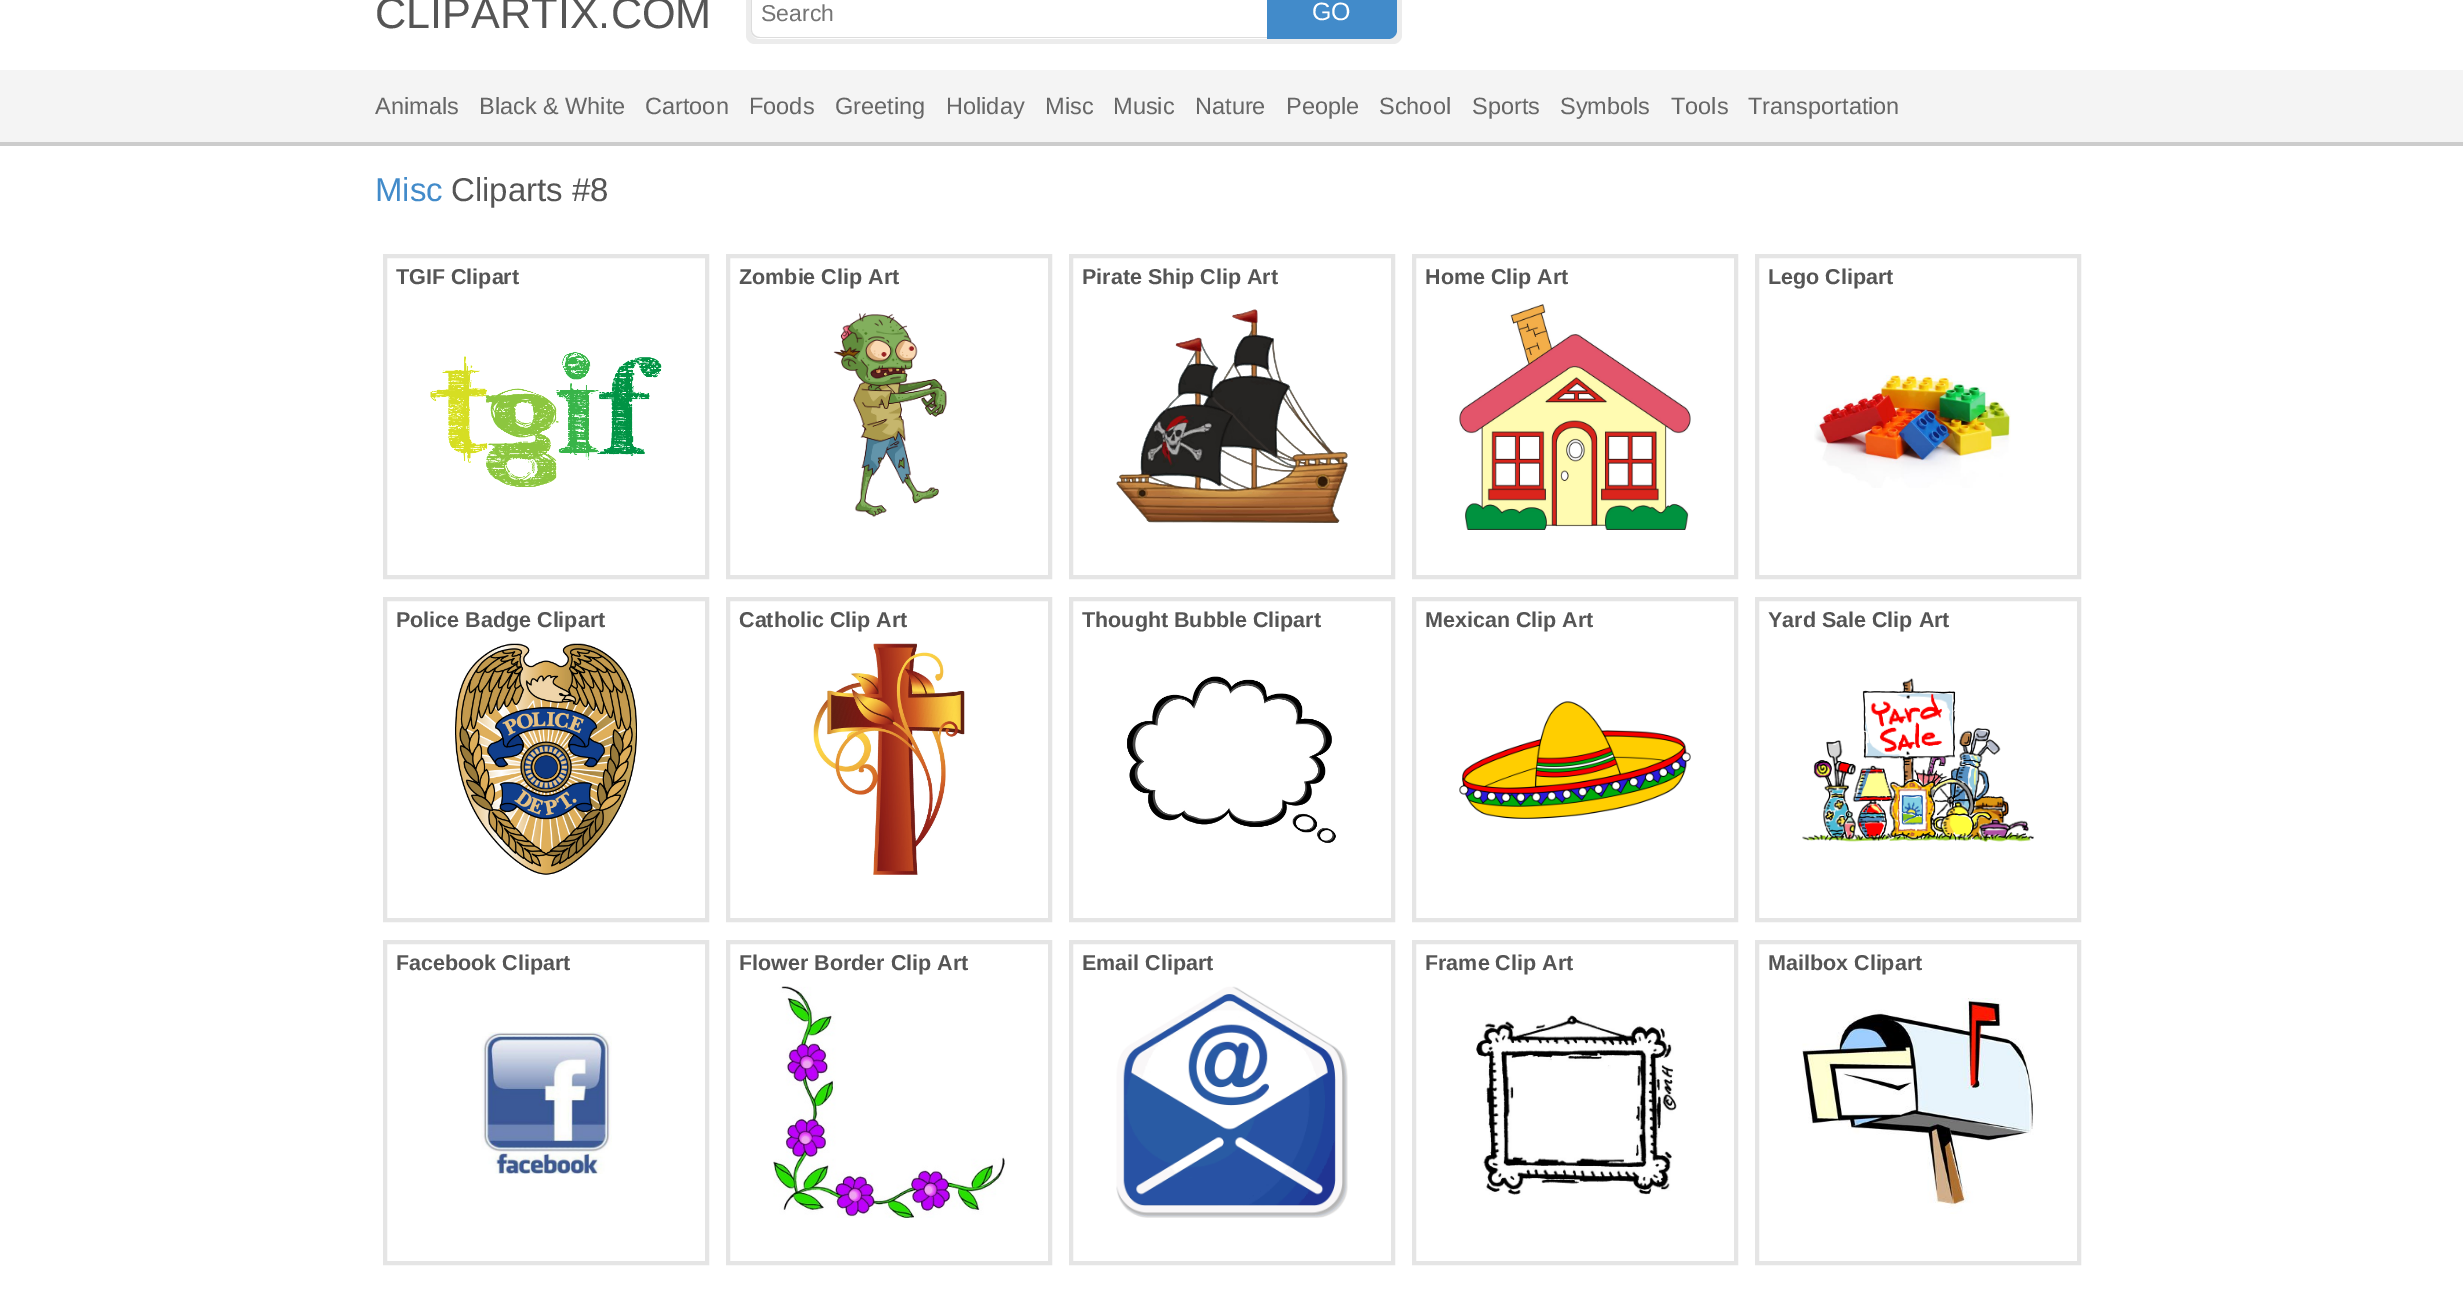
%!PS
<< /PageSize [2463 1315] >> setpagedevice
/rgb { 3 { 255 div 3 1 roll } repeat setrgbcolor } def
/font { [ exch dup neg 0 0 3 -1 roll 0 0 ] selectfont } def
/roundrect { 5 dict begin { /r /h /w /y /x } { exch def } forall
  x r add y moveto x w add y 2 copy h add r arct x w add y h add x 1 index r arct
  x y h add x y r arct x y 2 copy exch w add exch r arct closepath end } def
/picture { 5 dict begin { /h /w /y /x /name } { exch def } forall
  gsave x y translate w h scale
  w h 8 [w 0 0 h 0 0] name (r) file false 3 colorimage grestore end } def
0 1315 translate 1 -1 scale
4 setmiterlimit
255 255 255 rgb
0 0 2463 1315 rectfill
236 236 236 rgb
746 -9 656 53 9 roundrect fill
255 255 255 rgb
760 -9 moveto 1267 -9 lineto 1267 39 lineto 760 39 lineto 755 39 751 35 751 30 curveto 751 0 lineto 751 -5 755 -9 760 -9 curveto closepath fill
221 221 221 rgb
760 -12 moveto 1267 -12 lineto 1267 38 lineto 760 38 lineto 755 38 751 35 751 30 curveto 751 -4 lineto 751 -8 755 -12 760 -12 curveto closepath 760 -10 moveto 1267 -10 lineto 1267 37 lineto 760 37 lineto 756 37 752 34 752 30 curveto 752 -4 lineto 752 -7 756 -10 760 -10 curveto closepath eofill
66 139 202 rgb
1267 -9 moveto 1388 -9 lineto 1393 -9 1397 -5 1397 0 curveto 1397 30 lineto 1397 35 1393 39 1388 39 curveto 1267 39 lineto closepath fill
244 244 244 rgb
0 70 2463 72 rectfill
204 204 204 rgb
0 142 2463 4 rectfill
229 229 229 rgb
4 setlinewidth
385 256 322 321 rectstroke
(img/1.rgb) 430 352 232 135 picture
728 256 322 321 rectstroke
(img/2.rgb) 833 313 114 204 picture
1071 256 322 321 rectstroke
(img/3.rgb) 1116 309 232 214 picture
1414 256 322 321 rectstroke
(img/4.rgb) 1459 304 232 226 picture
1757 256 322 321 rectstroke
(img/5.rgb) 1814 375 197 113 picture
385 599 322 321 rectstroke
(img/6.rgb) 455 643 182 232 picture
728 599 322 321 rectstroke
(img/7.rgb) 813 643 152 232 picture
1071 599 322 321 rectstroke
(img/8.rgb) 1127 676 209 167 picture
1414 599 322 321 rectstroke
(img/9.rgb) 1459 701 232 118 picture
1757 599 322 321 rectstroke
(img/10.rgb) 1802 678 232 164 picture
385 942 322 321 rectstroke
(img/11.rgb) 481 1032 131 142 picture
728 942 322 321 rectstroke
(img/12.rgb) 773 986 232 232 picture
1071 942 322 321 rectstroke
(img/13.rgb) 1116 986 232 232 picture
1414 942 322 321 rectstroke
(img/14.rgb) 1476 1015 201 180 picture
1757 942 322 321 rectstroke
(img/15.rgb) 1802 998 232 216 picture
/LiberationSans-Regular 43.25 font
85 85 85 rgb
375 28 moveto (CLIPARTIX.COM) show
/LiberationSans-Regular 23 font
117 117 117 rgb
761 21 moveto (Search) show
/LiberationSans-Regular 25 font
255 255 255 rgb
1312 20 moveto (GO) show
/LiberationSans-Regular 23.5 font
102 102 102 rgb
[
  [(Animals) 375 114]
  [(Black & White) 479 114]
  [(Cartoon) 645 114]
  [(Foods) 749 114]
  [(Greeting) 835 114]
  [(Holiday) 946 114]
  [(Misc) 1045 114]
  [(Music) 1113 114]
  [(Nature) 1195 114]
  [(People) 1286 114]
  [(School) 1379 114]
  [(Sports) 1472 114]
  [(Symbols) 1560 114]
  [(Tools) 1671 114]
  [(Transportation) 1748 114]
] { aload pop moveto show } forall
/LiberationSans-Regular 33 font
66 139 202 rgb
375 201 moveto (Misc) show
85 85 85 rgb
451 201 moveto (Cliparts #8) show
/LiberationSans-Bold 21.5 font
[
  [(TGIF Clipart) 396 284]
  [(Zombie Clip Art) 739 284]
  [(Pirate Ship Clip Art) 1082 284]
  [(Home Clip Art) 1425 284]
  [(Lego Clipart) 1768 284]
  [(Police Badge Clipart) 396 627]
  [(Catholic Clip Art) 739 627]
  [(Thought Bubble Clipart) 1082 627]
  [(Mexican Clip Art) 1425 627]
  [(Yard Sale Clip Art) 1768 627]
  [(Facebook Clipart) 396 970]
  [(Flower Border Clip Art) 739 970]
  [(Email Clipart) 1082 970]
  [(Frame Clip Art) 1425 970]
  [(Mailbox Clipart) 1768 970]
] { aload pop moveto show } forall
showpage
